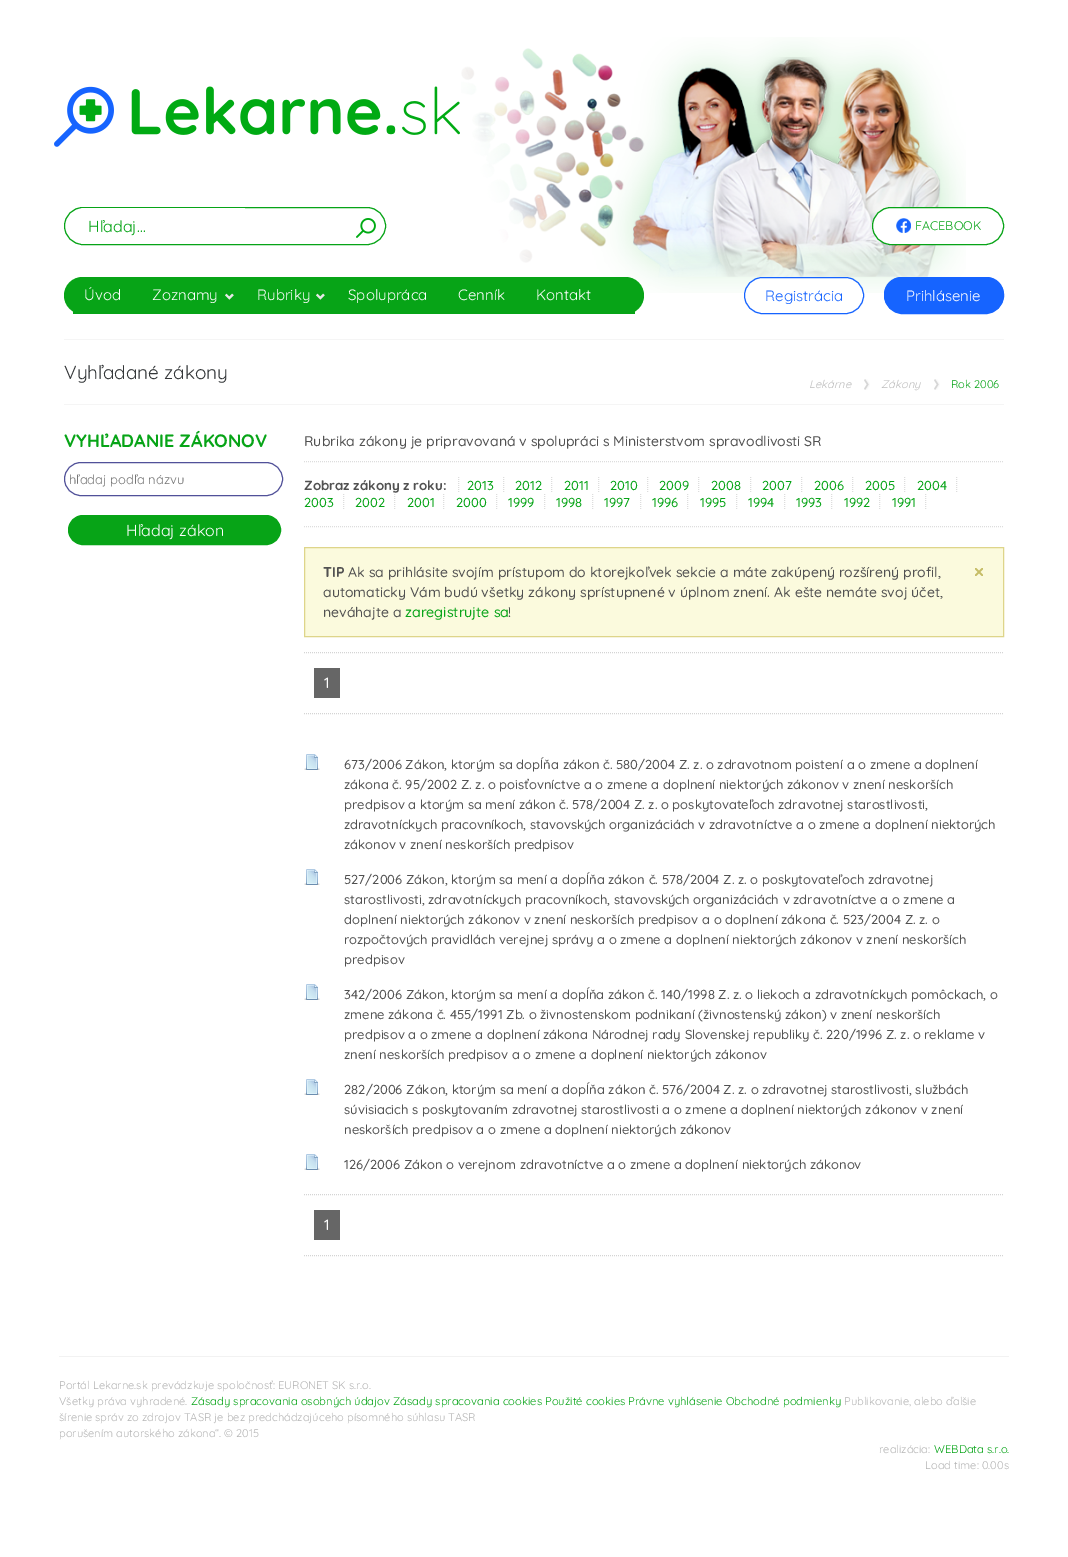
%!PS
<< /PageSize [1068 1557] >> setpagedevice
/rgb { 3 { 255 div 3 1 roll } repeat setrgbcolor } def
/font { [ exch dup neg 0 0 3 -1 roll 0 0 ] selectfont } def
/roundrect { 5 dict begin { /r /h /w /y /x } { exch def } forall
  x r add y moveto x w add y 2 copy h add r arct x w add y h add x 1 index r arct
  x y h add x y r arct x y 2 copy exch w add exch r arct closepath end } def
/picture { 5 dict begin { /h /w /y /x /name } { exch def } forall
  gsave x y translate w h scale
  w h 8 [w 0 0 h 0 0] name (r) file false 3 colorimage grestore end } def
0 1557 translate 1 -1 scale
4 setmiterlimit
255 255 255 rgb
0 0 1068 1557 rectfill
(img/1.rgb) 54 86 406 61 picture
(img/2.rgb) 461 37 505 256 picture
7 164 23 rgb
64.5 207.5 321 37 18.5 roundrect stroke
255 255 255 rgb
83 208 moveto 245 208 lineto 245 244 lineto 83 244 lineto 81.5 244 80 242.5 80 241 curveto 80 211 lineto 80 209.5 81.5 208 83 208 curveto closepath fill
(img/3.rgb) 356 218 20 20 picture
872.5 207.5 131 37 18.5 roundrect gsave fill grestore
7 164 23 rgb
stroke
(img/4.rgb) 896 218 15 15 picture
64 277 580 37 18.5 roundrect fill
73 311 562 3 rectfill
(img/5.rgb) 225 293 9 7 picture
(img/5.rgb) 316 293 9 7 picture
255 255 255 rgb
744.5 277.5 119 36 18 roundrect gsave fill grestore
22 100 255 rgb
stroke
884 277 120 35 17.5 roundrect fill
884.5 277.5 119 36 18 roundrect gsave fill grestore
stroke
245 245 245 rgb
64 339 940 1 rectfill
64 404 940 1 rectfill
(img/6.rgb) 864 379 6 11 picture
(img/6.rgb) 934 379 6 11 picture
81 81 153 rgb
64.5 462.5 218 33 16.5 roundrect stroke
7 164 23 rgb
68.5 515.5 212 29 14.5 roundrect gsave fill grestore
stroke
221 221 221 rgb
[1 1] 0 setdash
304 461.5 moveto 1004 461.5 lineto stroke
304 526.5 moveto 1004 526.5 lineto stroke
458.5 477 moveto 458.5 493 lineto stroke
503.5 477 moveto 503.5 493 lineto stroke
551.5 477 moveto 551.5 493 lineto stroke
598.5 477 moveto 598.5 493 lineto stroke
647.5 477 moveto 647.5 493 lineto stroke
698.5 477 moveto 698.5 493 lineto stroke
750.5 477 moveto 750.5 493 lineto stroke
801.5 477 moveto 801.5 493 lineto stroke
852.5 477 moveto 852.5 493 lineto stroke
904.5 477 moveto 904.5 493 lineto stroke
956.5 477 moveto 956.5 493 lineto stroke
343.5 494 moveto 343.5 510 lineto stroke
394.5 494 moveto 394.5 510 lineto stroke
443.5 494 moveto 443.5 510 lineto stroke
496.5 494 moveto 496.5 510 lineto stroke
544.5 494 moveto 544.5 510 lineto stroke
592.5 494 moveto 592.5 510 lineto stroke
640.5 494 moveto 640.5 510 lineto stroke
687.5 494 moveto 687.5 510 lineto stroke
736.5 494 moveto 736.5 510 lineto stroke
784.5 494 moveto 784.5 510 lineto stroke
831.5 494 moveto 831.5 510 lineto stroke
879.5 494 moveto 879.5 510 lineto stroke
925.5 494 moveto 925.5 510 lineto stroke
251 250 221 rgb
304.5 547.5 moveto 1003.5 547.5 lineto 1003.5 636.5 lineto 304.5 636.5 lineto closepath gsave fill grestore
222 213 138 rgb
[] 0 setdash
stroke
(img/7.rgb) 975 568 8 8 picture
212 212 212 rgb
[1 1] 0 setdash
304 652.5 moveto 1004 652.5 lineto stroke
304 713.5 moveto 1004 713.5 lineto stroke
102 102 102 rgb
314 668 26 30 rectfill
(img/8.rgb) 304 754 16 16 picture
(img/8.rgb) 304 869 16 16 picture
(img/8.rgb) 304 984 16 16 picture
(img/8.rgb) 304 1079 16 16 picture
(img/8.rgb) 304 1154 16 16 picture
212 212 212 rgb
304 1194.5 moveto 1004 1194.5 lineto stroke
304 1255.5 moveto 1004 1255.5 lineto stroke
102 102 102 rgb
314 1210 26 30 rectfill
242 242 242 rgb
59 1356 950 1 rectfill
/Quicksand-Regular 16 font
7 164 23 rgb
88 232 moveto (Hľadaj...) show
/Quicksand-Regular 12.5 font
915 230 moveto (FACEBOOK) show
/Quicksand-Regular 15 font
255 255 255 rgb
[
  [(Úvod) 84 300]
  [(Zoznamy) 152 300]
  [(Rubriky) 257 300]
  [(Spolupráca) 348 300]
  [(Cenník) 458 300]
  [(Kontakt) 536 300]
] { aload pop moveto show } forall
22 100 255 rgb
765 301 moveto (Registrácia) show
255 255 255 rgb
906 301 moveto (Prihlásenie) show
/Quicksand-Regular 19 font
52 55 57 rgb
64 379 moveto (Vyhľadané zákony) show
/Quicksand-Italic 11.1 font
189 189 189 rgb
809 388 moveto (Lekárne) show
881 388 moveto (Zákony) show
/Quicksand-Regular 11.1 font
7 164 23 rgb
951 388 moveto (Rok 2006) show
/Quicksand-Bold 18 font
64 447 moveto (VYHĽADANIE ZÁKONOV) show
/Quicksand-Regular 13 font
117 117 117 rgb
69 484 moveto (hľadaj podľa názvu) show
/Quicksand-Regular 16 font
255 255 255 rgb
126 536 moveto (Hľadaj zákon) show
/Quicksand-Medium 14 font
81 81 81 rgb
304 446 moveto (Rubrika zákony je pripravovaná v spolupráci s Ministerstvom spravodlivosti SR) show
/Quicksand-Bold 13.25 font
304 490 moveto (Zobraz zákony z roku:) show
/Quicksand-Medium 13 font
7 164 23 rgb
[
  [(2013) 467 490]
  [(2012) 515 490]
  [(2011) 564 490]
  [(2010) 610 490]
  [(2009) 659 490]
  [(2008) 711 490]
  [(2007) 762 490]
  [(2006) 814 490]
  [(2005) 865 490]
  [(2004) 917 490]
  [(2003) 304 507]
  [(2002) 355 507]
  [(2001) 407 507]
  [(2000) 456 507]
  [(1999) 508 507]
  [(1998) 556 507]
  [(1997) 604 507]
  [(1996) 652 507]
  [(1995) 700 507]
  [(1994) 748 507]
  [(1993) 796 507]
  [(1992) 844 507]
  [(1991) 892 507]
] { aload pop moveto show } forall
/Quicksand-Bold 14.25 font
81 81 81 rgb
323 577 moveto (TIP) show
/Quicksand-Medium 14 font
[
  [(Ak sa prihlásite svojím prístupom do ktorejkoľvek sekcie a máte zakúpený rozšírený profil,) 348 577]
  [(automaticky Vám budú všetky zákony sprístupnené v úplnom znení. Ak ešte nemáte svoj účet,) 323 597]
  [(neváhajte a) 323 617]
] { aload pop moveto show } forall
/Quicksand-Medium 14.25 font
7 164 23 rgb
405 617 moveto (zaregistrujte sa) show
/Quicksand-Medium 14 font
81 81 81 rgb
508 617 moveto (!) show
/Quicksand-Medium 15 font
255 255 255 rgb
324 688 moveto (1) show
/Quicksand-Medium 13 font
81 81 81 rgb
[
  [(673/2006 Zákon, ktorým sa dopĺňa zákon č. 580/2004 Z. z. o zdravotnom poistení a o zmene a doplnení) 344 769]
  [(zákona č. 95/2002 Z. z. o poisťovníctve a o zmene a doplnení niektorých zákonov v znení neskorších) 344 789]
  [(predpisov a ktorým sa mení zákon č. 578/2004 Z. z. o poskytovateľoch zdravotnej starostlivosti,) 344 809]
  [(zdravotníckych pracovníkoch, stavovských organizáciách v zdravotníctve a o zmene a doplnení niektorých) 344 829]
  [(zákonov v znení neskorších predpisov) 344 849]
  [(527/2006 Zákon, ktorým sa mení a dopĺňa zákon č. 578/2004 Z. z. o poskytovateľoch zdravotnej) 344 884]
  [(starostlivosti, zdravotníckych pracovníkoch, stavovských organizáciách v zdravotníctve a o zmene a) 344 904]
  [(doplnení niektorých zákonov v znení neskorších predpisov a o doplnení zákona č. 523/2004 Z. z. o) 344 924]
  [(rozpočtových pravidlách verejnej správy a o zmene a doplnení niektorých zákonov v znení neskorších) 344 944]
  [(predpisov) 344 964]
  [(342/2006 Zákon, ktorým sa mení a dopĺňa zákon č. 140/1998 Z. z. o liekoch a zdravotníckych pomôckach, o) 344 999]
  [(zmene zákona č. 455/1991 Zb. o živnostenskom podnikaní \(živnostenský zákon\) v znení neskorších) 344 1019]
  [(predpisov a o zmene a doplnení zákona Národnej rady Slovenskej republiky č. 220/1996 Z. z. o reklame v) 344 1039]
  [(znení neskorších predpisov a o zmene a doplnení niektorých zákonov) 344 1059]
  [(282/2006 Zákon, ktorým sa mení a dopĺňa zákon č. 576/2004 Z. z. o zdravotnej starostlivosti, službách) 344 1094]
  [(súvisiacich s poskytovaním zdravotnej starostlivosti a o zmene a doplnení niektorých zákonov v znení) 344 1114]
  [(neskorších predpisov a o zmene a doplnení niektorých zákonov) 344 1134]
  [(126/2006 Zákon o verejnom zdravotníctve a o zmene a doplnení niektorých zákonov) 344 1169]
] { aload pop moveto show } forall
/Quicksand-Medium 15 font
255 255 255 rgb
324 1230 moveto (1) show
/Quicksand-Regular 11.1 font
181 181 181 rgb
59 1389 moveto (Portál Lekarne.sk prevádzkuje spoločnosť: EURONET SK s.r.o.) show
59 1405 moveto (Všetky práva vyhradené.) show
/Quicksand-Regular 11.22 font
7 164 23 rgb
191 1405 moveto (Zásady spracovania osobných údajov Zásady spracovania cookies Použité cookies Právne vyhlásenie Obchodné podmienky) show
/Quicksand-Regular 11.1 font
181 181 181 rgb
[
  [(Publikovanie, alebo ďalšie) 844 1405]
  [(šírenie správ zo zdrojov TASR je bez predchádzajúceho písomného súhlasu TASR) 59 1421]
  [(porušením autorského zákona“. © 2015) 59 1437]
  [(realizácia:) 879 1453]
] { aload pop moveto show } forall
/Quicksand-Regular 11.22 font
7 164 23 rgb
934 1453 moveto (WEBData s.r.o.) show
/Quicksand-Regular 11.1 font
181 181 181 rgb
925 1469 moveto (Load time: 0.00s) show
showpage
